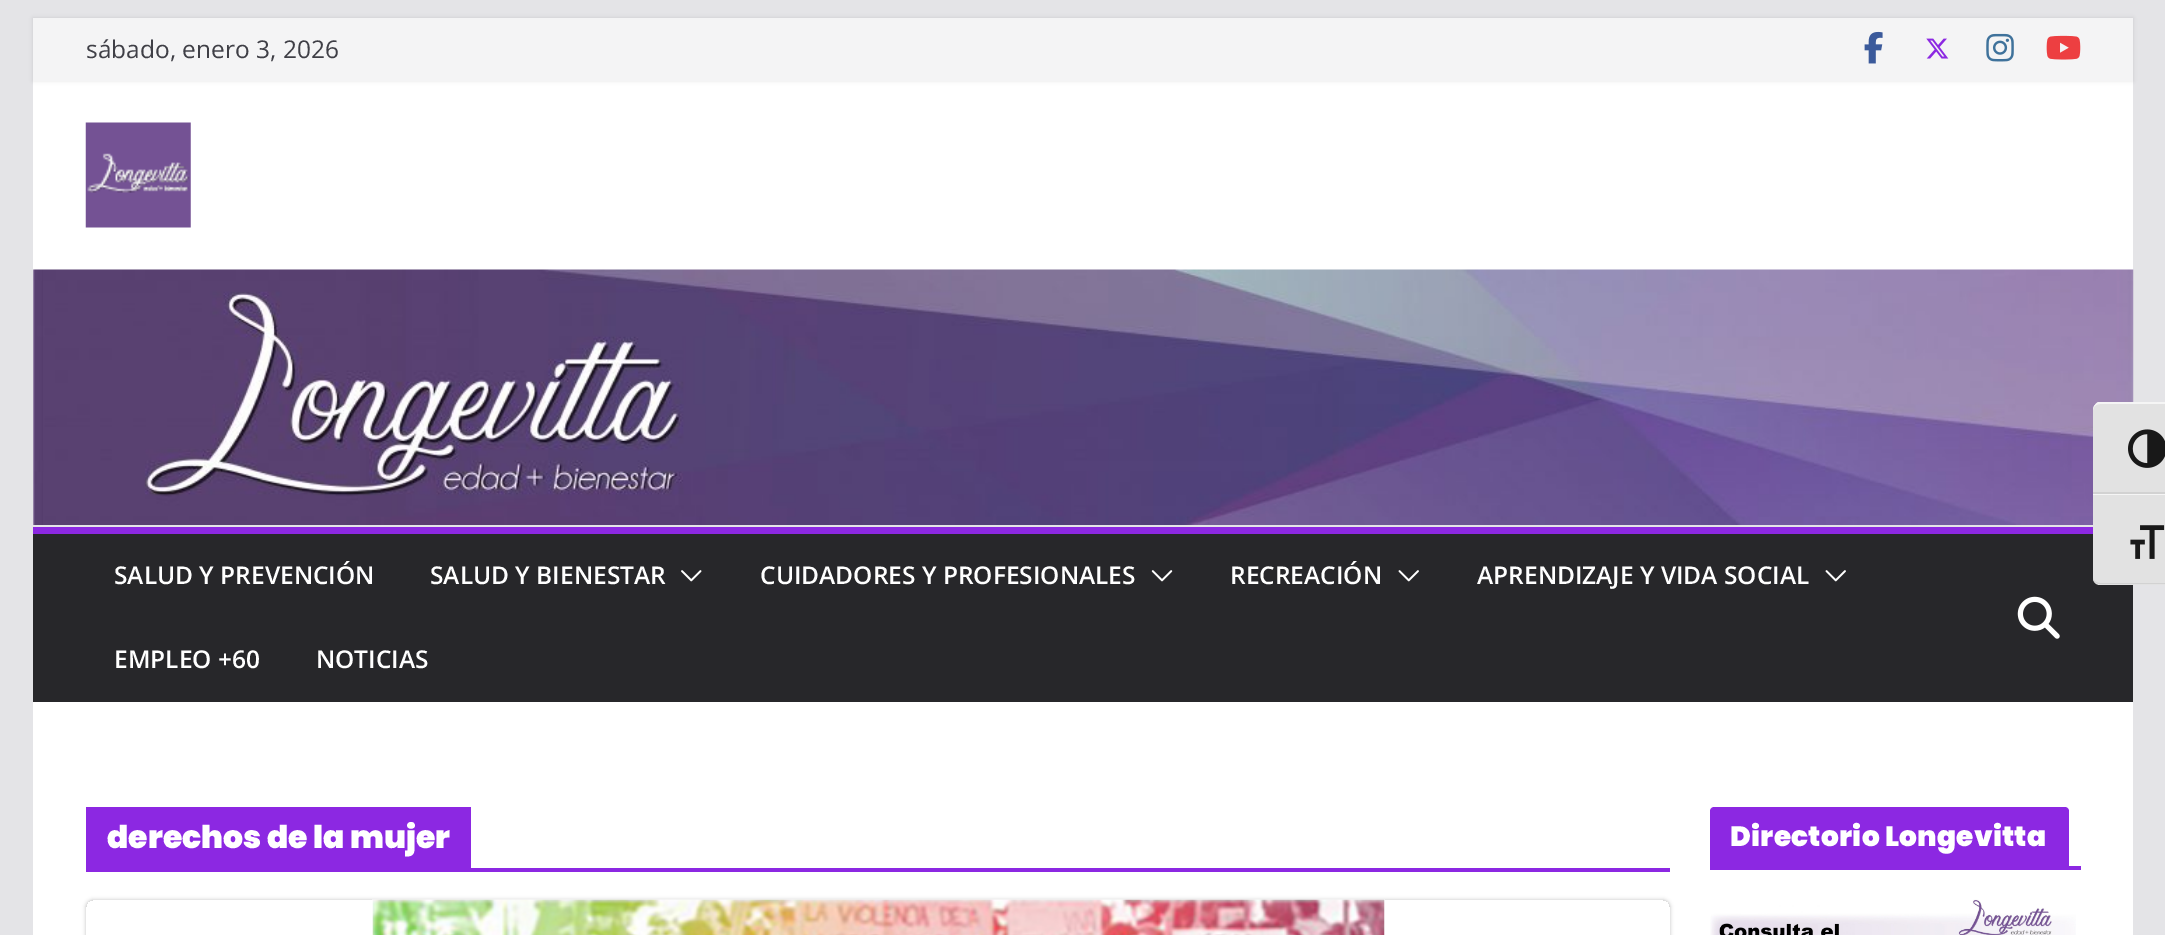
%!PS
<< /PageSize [2165 935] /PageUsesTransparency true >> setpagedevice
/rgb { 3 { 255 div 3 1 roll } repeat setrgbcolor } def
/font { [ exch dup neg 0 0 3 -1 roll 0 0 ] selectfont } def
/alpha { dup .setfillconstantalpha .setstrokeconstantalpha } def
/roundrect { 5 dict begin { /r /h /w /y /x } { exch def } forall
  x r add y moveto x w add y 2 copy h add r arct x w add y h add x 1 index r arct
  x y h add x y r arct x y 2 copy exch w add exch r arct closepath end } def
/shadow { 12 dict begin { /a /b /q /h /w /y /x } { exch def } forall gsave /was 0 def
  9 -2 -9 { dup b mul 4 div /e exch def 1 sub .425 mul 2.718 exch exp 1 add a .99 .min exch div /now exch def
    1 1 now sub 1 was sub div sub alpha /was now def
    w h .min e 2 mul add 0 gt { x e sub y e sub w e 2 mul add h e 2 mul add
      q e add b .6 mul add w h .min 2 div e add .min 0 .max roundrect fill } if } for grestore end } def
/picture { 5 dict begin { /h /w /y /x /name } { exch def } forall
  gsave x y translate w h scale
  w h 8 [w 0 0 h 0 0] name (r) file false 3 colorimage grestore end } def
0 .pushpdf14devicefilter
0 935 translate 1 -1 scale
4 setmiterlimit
228 228 231 rgb
0 0 2165 935 rectfill
255 255 255 rgb
33 81 2100 444 rectfill
0 0 0 rgb
33 18 2100 63 0 2 0.1 shadow
244 244 245 rgb
33 18 2100 63 rectfill
(img/1.rgb) 1864 31 19 33 picture
(img/2.rgb) 1926 38 23 21 picture
(img/3.rgb) 1986 33 28 29 picture
(img/4.rgb) 2046 35 35 25 picture
(img/5.rgb) 85 122 106 106 picture
(img/6.rgb) 33 269 2101 256 picture
39 39 42 rgb
33 534 2100 168 rectfill
140 40 226 rgb
33 527 2060 7 rectfill
(img/7.rgb) 681 570 21 12 picture
(img/8.rgb) 1151 570 22 12 picture
(img/9.rgb) 1398 570 21 12 picture
(img/9.rgb) 1825 570 21 12 picture
(img/10.rgb) 2017 596 43 43 picture
[
  [33 702 2100 233 255 255 255]
  [86 868 1584 4 140 40 226]
  [86 807 385 61 140 40 226]
] { aload pop rgb rectfill } forall
gsave
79 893 moveto 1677 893 lineto 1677 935 lineto 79 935 lineto closepath 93 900 moveto 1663 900 lineto 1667 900 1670 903 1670 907 curveto 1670 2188 lineto 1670 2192 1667 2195 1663 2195 curveto 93 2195 lineto 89 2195 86 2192 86 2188 curveto 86 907 lineto 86 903 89 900 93 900 curveto closepath eoclip newpath
0 0 0 rgb
86 900 1584 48 7 2 0.24 shadow
grestore
(img/11.rgb) 372 899 1013 36 picture
1710 866 371 4 rectfill
1714 807 moveto 2065 807 lineto 2067 807 2069 809 2069 811 curveto 2069 866 lineto 1710 866 lineto 1710 811 lineto 1710 809 1712 807 1714 807 curveto closepath fill
(img/12.rgb) 1710 899 366 36 picture
226 226 226 rgb
2100 403 moveto 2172 403 lineto 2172 494 lineto 2093 494 lineto 2093 410 lineto 2093 406 2096 403 2100 403 curveto closepath fill
245 245 245 rgb
2100 404 moveto 2096 404 2093 407 2093 410 curveto 2093 407 2095 404 2098 402 curveto 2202 402 lineto 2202 404 lineto closepath fill
210 210 210 rgb
2093 492 72 2 rectfill
(img/13.rgb) 2128 429 37 39 picture
226 226 226 rgb
2093 494 moveto 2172 494 lineto 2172 585 lineto 2100 585 lineto 2096 585 2093 582 2093 578 curveto closepath fill
245 245 245 rgb
2093 494 72 1 rectfill
210 210 210 rgb
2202 583 moveto 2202 584 lineto 2100 584 lineto 2096 584 2093 581 2093 578 curveto 2093 580 2096 583 2100 583 curveto closepath fill
(img/14.rgb) 2130 525 35 34 picture
/OpenSans-Regular 24.5 font
63 63 70 rgb
86 58 moveto (sábado, enero 3, 2026) show
/OpenSans-SemiBold 24.5 font
255 255 255 rgb
[
  [(SALUD Y PREVENCIÓN) 114 584]
  [(SALUD Y BIENESTAR) 430 584]
  [(CUIDADORES Y PROFESIONALES) 760 584]
  [(RECREACIÓN) 1230 584]
  [(APRENDIZAJE Y VIDA SOCIAL) 1477 584]
  [(EMPLEO +60) 114 668]
  [(NOTICIAS) 316 668]
] { aload pop moveto show } forall
/Poppins-Black 31.5 font
107 848 moveto (derechos de la mujer) show
/Poppins-Black 28 font
1730 846 moveto 0.25 0 (Directorio Longevitta) ashow
.poppdf14devicefilter showpage
